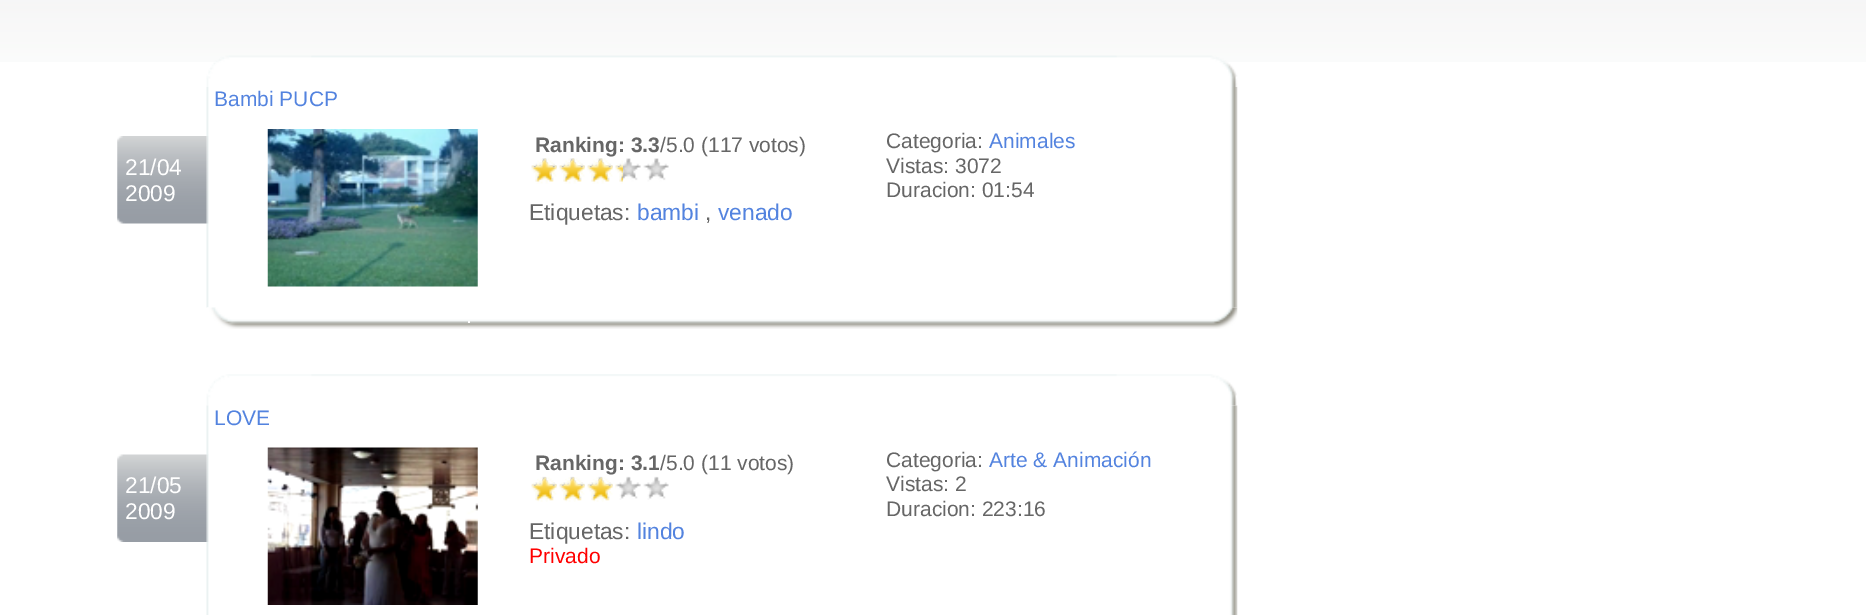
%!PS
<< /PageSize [1866 615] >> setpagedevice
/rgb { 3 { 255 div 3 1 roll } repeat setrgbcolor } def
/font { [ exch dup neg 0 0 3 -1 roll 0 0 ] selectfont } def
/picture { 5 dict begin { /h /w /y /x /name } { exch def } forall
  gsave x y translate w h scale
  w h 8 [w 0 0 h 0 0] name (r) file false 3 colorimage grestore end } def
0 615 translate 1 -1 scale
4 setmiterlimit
255 255 255 rgb
0 0 1866 615 rectfill
(img/1.rgb) 0 0 1866 62 picture
(img/4.rgb) 206 87 1032 221 picture
(img/2.rgb) 117 136 92 88 picture
(img/3.rgb) 206 55 1032 32 picture
(img/5.rgb) 267 129 211 158 picture
(img/6.rgb) 531 158 138 24 picture
(img/7.rgb) 531 158 92 26 picture
(img/8.rgb) 207 307 1031 22 picture
(img/10.rgb) 206 374 1031 32 picture
(img/11.rgb) 206 405 1032 210 picture
(img/9.rgb) 117 454 92 88 picture
(img/12.rgb) 267 447 211 158 picture
(img/13.rgb) 531 476 138 24 picture
(img/14.rgb) 531 477 85 25 picture
/LiberationSans-Regular 22.75 font
125 175 moveto (21/04) show
125 201 moveto (2009) show
/LiberationSans-Regular 21 font
83 131 223 rgb
214 106 moveto (Bambi PUCP) show
/LiberationSans-Bold 21 font
102 102 102 rgb
535 152 moveto (Ranking: 3.3) show
/LiberationSans-Regular 21 font
660 152 moveto (/5.0 \(117 votos\)) show
/LiberationSans-Regular 22.75 font
529 220 moveto (Etiquetas:) show
83 131 223 rgb
637 220 moveto (bambi) show
102 102 102 rgb
705 220 moveto (,) show
83 131 223 rgb
718 220 moveto (venado) show
/LiberationSans-Regular 21 font
255 255 255 rgb
466 323 moveto (.) show
102 102 102 rgb
886 148 moveto (Categoria:) show
83 131 223 rgb
989 148 moveto (Animales) show
102 102 102 rgb
886 173 moveto (Vistas: 3072) show
886 197 moveto (Duracion: 01:54) show
/LiberationSans-Regular 22.75 font
255 255 255 rgb
125 493 moveto (21/05) show
125 519 moveto (2009) show
/LiberationSans-Regular 21 font
83 131 223 rgb
214 425 moveto (LOVE) show
/LiberationSans-Bold 21 font
102 102 102 rgb
535 470 moveto (Ranking: 3.1) show
/LiberationSans-Regular 21 font
660 470 moveto (/5.0 \(11 votos\)) show
/LiberationSans-Regular 22.75 font
529 539 moveto (Etiquetas:) show
83 131 223 rgb
637 539 moveto (lindo) show
/LiberationSans-Regular 21 font
255 0 0 rgb
529 563 moveto (Privado) show
102 102 102 rgb
886 467 moveto (Categoria:) show
83 131 223 rgb
989 467 moveto (Arte & Animación) show
102 102 102 rgb
886 491 moveto (Vistas: 2) show
886 516 moveto (Duracion: 223:16) show
showpage
